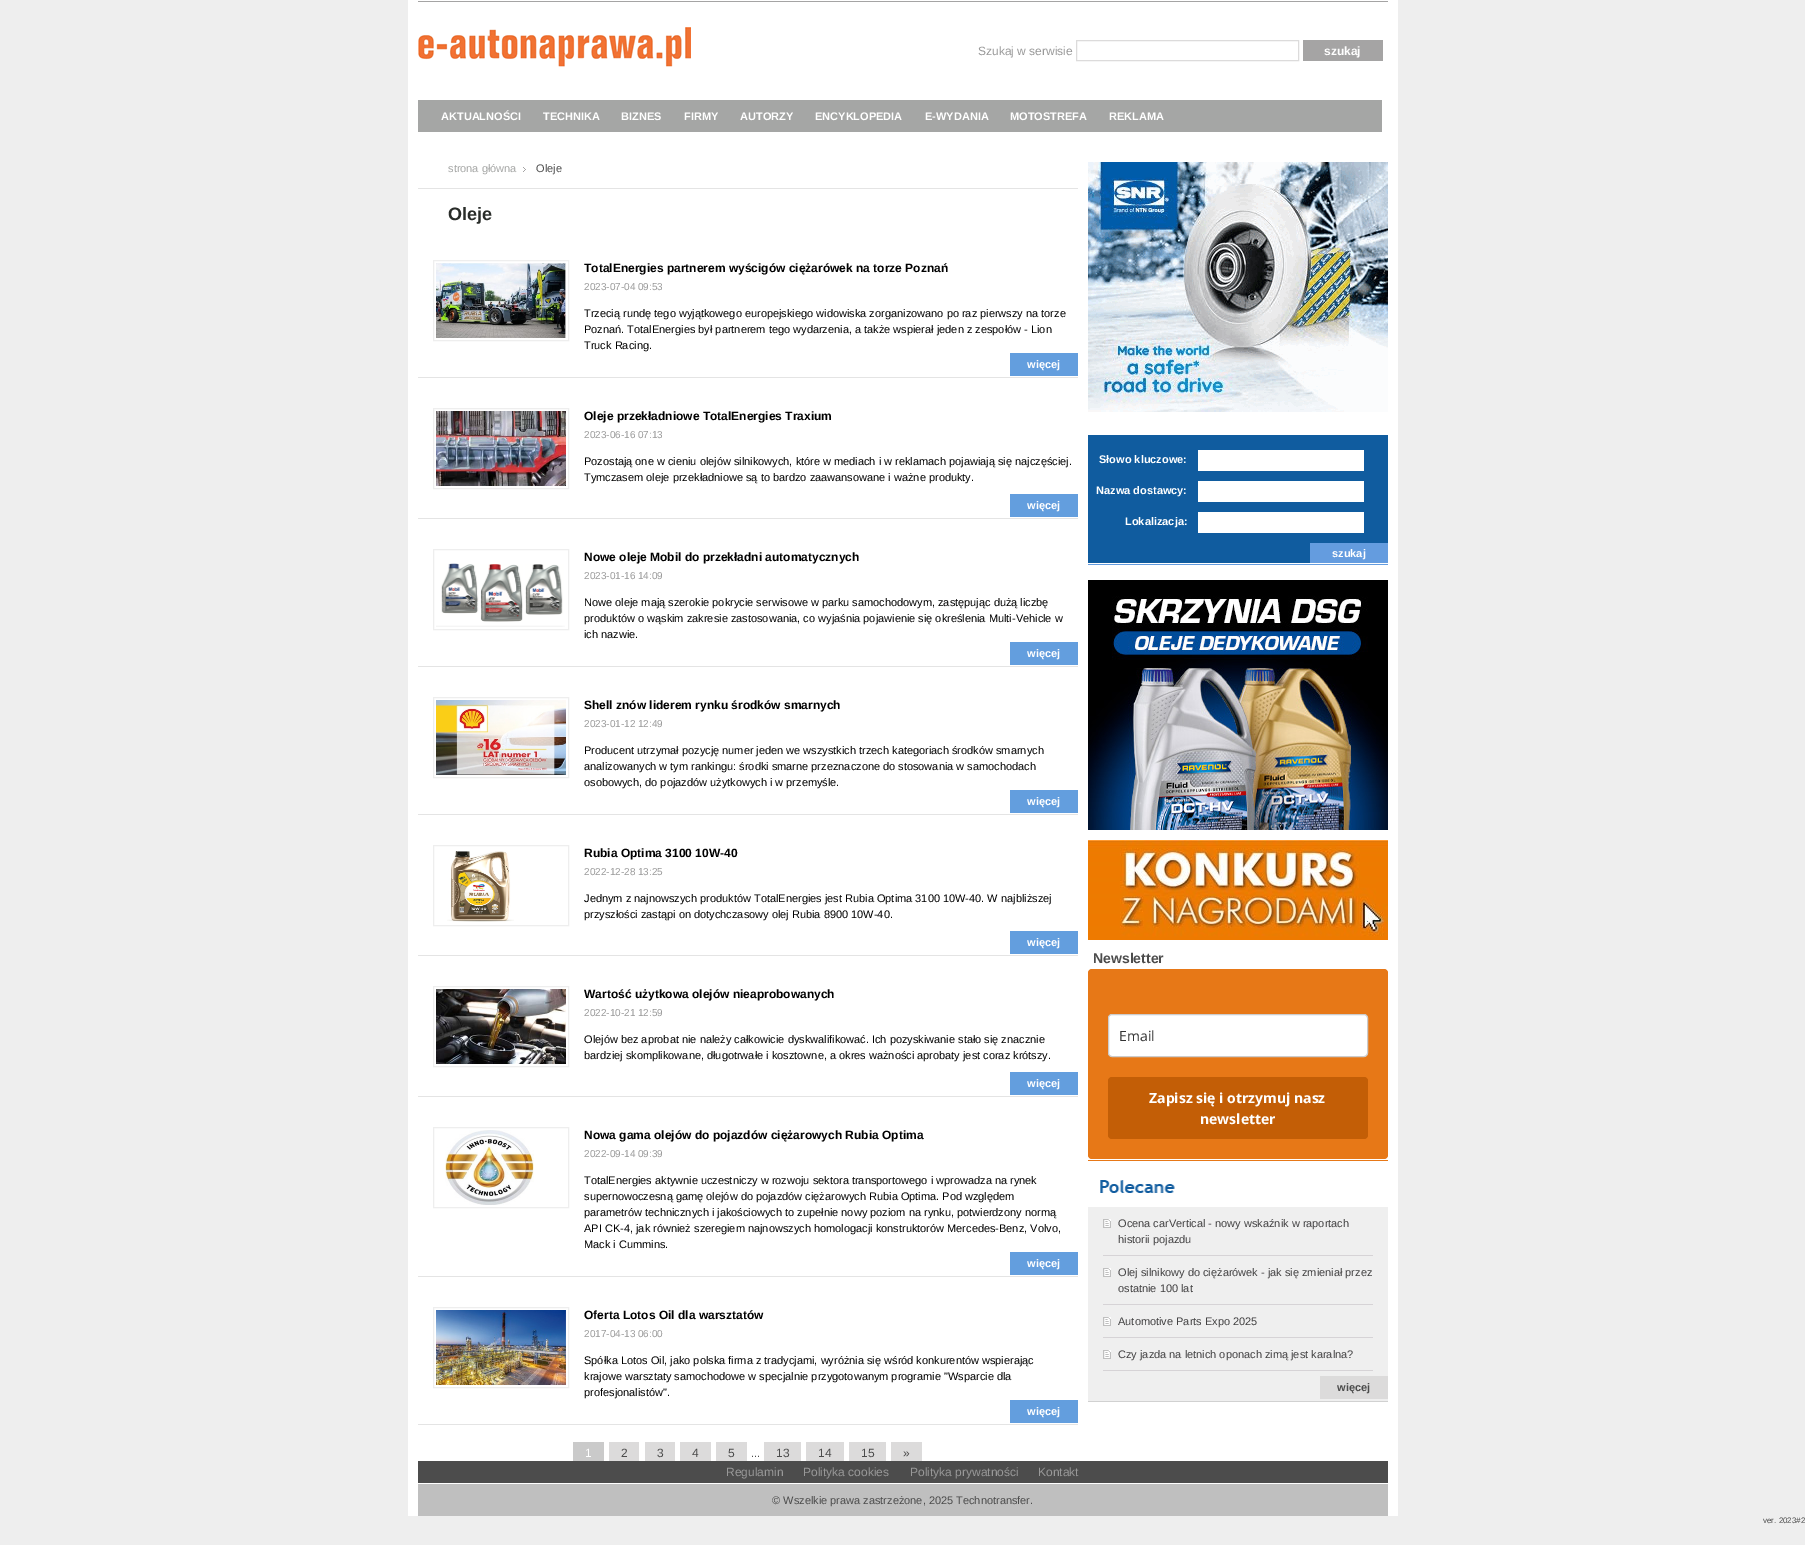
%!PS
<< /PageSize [1805 1545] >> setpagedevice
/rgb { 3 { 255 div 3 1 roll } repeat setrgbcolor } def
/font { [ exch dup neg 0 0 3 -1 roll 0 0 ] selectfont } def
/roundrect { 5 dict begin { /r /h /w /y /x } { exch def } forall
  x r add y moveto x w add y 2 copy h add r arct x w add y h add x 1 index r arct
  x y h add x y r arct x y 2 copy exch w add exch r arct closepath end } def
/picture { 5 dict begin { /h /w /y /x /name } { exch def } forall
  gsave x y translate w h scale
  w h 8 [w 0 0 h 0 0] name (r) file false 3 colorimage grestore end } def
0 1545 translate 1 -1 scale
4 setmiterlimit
238 238 238 rgb
0 0 1805 1545 rectfill
255 255 255 rgb
408 0 990 1516 rectfill
165 164 164 rgb
418 1 970 1 rectfill
(img/1.rgb) 418 27 273 40 picture
220 219 219 rgb
1076.5 40.5 222 20 rectstroke
[
  [1303 40 80 21 165 164 164]
  [418 100 964 32 165 166 165]
  [418 188 660 1 228 228 228]
] { aload pop rgb rectfill } forall
(img/2.rgb) 523 167 3 5 picture
418 377 660 1 rectfill
238 238 238 rgb
433.5 260.5 135 80 rectstroke
(img/3.rgb) 436 263 130 75 picture
99 158 222 rgb
1010 353 68 23 rectfill
228 228 228 rgb
418 518 660 1 rectfill
238 238 238 rgb
433.5 408.5 135 80 rectstroke
(img/4.rgb) 436 411 130 75 picture
99 158 222 rgb
1010 494 68 23 rectfill
228 228 228 rgb
418 666 660 1 rectfill
238 238 238 rgb
433.5 549.5 135 80 rectstroke
(img/5.rgb) 436 563 129 64 picture
99 158 222 rgb
1010 642 68 23 rectfill
228 228 228 rgb
418 814 660 1 rectfill
238 238 238 rgb
433.5 697.5 135 80 rectstroke
(img/6.rgb) 436 700 130 75 picture
99 158 222 rgb
1010 790 68 23 rectfill
228 228 228 rgb
418 955 660 1 rectfill
238 238 238 rgb
433.5 845.5 135 80 rectstroke
(img/7.rgb) 447 851 67 71 picture
99 158 222 rgb
1010 931 68 23 rectfill
228 228 228 rgb
418 1096 660 1 rectfill
238 238 238 rgb
433.5 986.5 135 80 rectstroke
(img/8.rgb) 436 989 130 75 picture
99 158 222 rgb
1010 1072 68 23 rectfill
228 228 228 rgb
418 1276 660 1 rectfill
238 238 238 rgb
433.5 1127.5 135 80 rectstroke
(img/9.rgb) 445 1130 89 75 picture
99 158 222 rgb
1010 1252 68 23 rectfill
228 228 228 rgb
418 1424 660 1 rectfill
238 238 238 rgb
433.5 1307.5 135 80 rectstroke
(img/10.rgb) 436 1310 130 75 picture
[
  [1010 1400 68 23 99 158 222]
  [573 1442 31 19 202 202 202]
  [609 1442 30 19 220 219 219]
  [645 1442 30 19 220 219 219]
  [680 1442 31 19 220 219 219]
  [716 1442 31 19 220 219 219]
  [764 1442 37 19 220 219 219]
  [806 1442 38 19 220 219 219]
  [849 1442 37 19 220 219 219]
  [891 1442 31 19 220 219 219]
] { aload pop rgb rectfill } forall
(img/11.rgb) 1088 162 300 250 picture
[
  [1088 564 300 1 100 156 223]
  [1088 435 300 128 16 92 159]
  [1198 450 166 21 255 255 255]
  [1198 481 166 21 255 255 255]
  [1198 512 166 21 255 255 255]
  [1310 543 78 20 100 156 223]
] { aload pop rgb rectfill } forall
(img/12.rgb) 1088 580 300 250 picture
(img/13.rgb) 1088 840 300 100 picture
231 120 23 rgb
1088 1160 300 1 rectfill
1088 969 300 190 4 roundrect fill
255 255 255 rgb
1108.5 1014.5 259 42 3.5 roundrect gsave fill grestore
204 204 204 rgb
stroke
195 94 6 rgb
1108 1077 260 62 4 roundrect fill
(img/14.rgb) 1100 1180 75 13 picture
239 239 239 rgb
1088 1207 300 194 rectfill
209 209 209 rgb
1088 1401 300 1 rectfill
(img/15.rgb) 1103 1219 8 9 picture
214 211 214 rgb
1103 1255 270 1 rectfill
(img/15.rgb) 1103 1268 8 9 picture
1103 1304 270 1 rectfill
(img/15.rgb) 1103 1317 8 9 picture
1103 1337 270 1 rectfill
(img/15.rgb) 1103 1350 8 9 picture
[
  [1103 1370 270 1 214 211 214]
  [1320 1376 68 23 220 219 219]
  [418 1461 970 22 76 76 76]
  [418 1484 970 32 191 191 191]
] { aload pop rgb rectfill } forall
/LiberationSans-Regular 12 font
153 153 153 rgb
978 55 moveto (Szukaj w serwisie) show
/LiberationSans-Bold 12 font
255 255 255 rgb
1324 55 moveto (szukaj) show
/LiberationSans-Bold 11 font
[
  [(AKTUALNOŚCI) 441 120]
  [(TECHNIKA) 543 120]
  [(BIZNES) 621 120]
  [(FIRMY) 684 120]
  [(AUTORZY) 740 120]
  [(ENCYKLOPEDIA) 815 120]
  [(E-WYDANIA) 925 120]
  [(MOTOSTREFA) 1010 120]
  [(REKLAMA) 1109 120]
] { aload pop moveto show } forall
/LiberationSans-Regular 11 font
165 166 165 rgb
448 172 moveto (strona główna) show
76 76 76 rgb
536 172 moveto (Oleje) show
/LiberationSans-Bold 18 font
41 44 41 rgb
448 220 moveto (Oleje) show
/LiberationSans-Bold 12 font
0 0 0 rgb
584 272 moveto (TotalEnergies partnerem wyścigów ciężarówek na torze Poznań) show
/LiberationSans-Regular 10 font
153 153 153 rgb
584 290 moveto (2023-07-04 09:53) show
/LiberationSans-Regular 11 font
0 0 0 rgb
[
  [(Trzecią rundę tego wyjątkowego europejskiego widowiska zorganizowano po raz pierwszy na torze) 584 317]
  [(Poznań. TotalEnergies był partnerem tego wydarzenia, a także wspierał jeden z zespołów - Lion) 584 333]
  [(Truck Racing.) 584 349]
] { aload pop moveto show } forall
/LiberationSans-Bold 11 font
255 255 255 rgb
1027 368 moveto (więcej) show
/LiberationSans-Bold 12 font
0 0 0 rgb
584 420 moveto (Oleje przekładniowe TotalEnergies Traxium) show
/LiberationSans-Regular 10 font
153 153 153 rgb
584 438 moveto (2023-06-16 07:13) show
/LiberationSans-Regular 11 font
0 0 0 rgb
584 465 moveto (Pozostają one w cieniu olejów silnikowych, które w mediach i w reklamach pojawiają się najczęściej.) show
584 481 moveto (Tymczasem oleje przekładniowe są to bardzo zaawansowane i ważne produkty.) show
/LiberationSans-Bold 11 font
255 255 255 rgb
1027 509 moveto (więcej) show
/LiberationSans-Bold 12 font
0 0 0 rgb
584 561 moveto (Nowe oleje Mobil do przekładni automatycznych) show
/LiberationSans-Regular 10 font
153 153 153 rgb
584 579 moveto (2023-01-16 14:09) show
/LiberationSans-Regular 11 font
0 0 0 rgb
[
  [(Nowe oleje mają szerokie pokrycie serwisowe w parku samochodowym, zastępując dużą liczbę) 584 606]
  [(produktów o wąskim zakresie zastosowania, co wyjaśnia pojawienie się określenia Multi-Vehicle w) 584 622]
  [(ich nazwie.) 584 638]
] { aload pop moveto show } forall
/LiberationSans-Bold 11 font
255 255 255 rgb
1027 657 moveto (więcej) show
/LiberationSans-Bold 12 font
0 0 0 rgb
584 709 moveto (Shell znów liderem rynku środków smarnych) show
/LiberationSans-Regular 10 font
153 153 153 rgb
584 727 moveto (2023-01-12 12:49) show
/LiberationSans-Regular 11 font
0 0 0 rgb
[
  [(Producent utrzymał pozycję numer jeden we wszystkich trzech kategoriach środków smarnych) 584 754]
  [(analizowanych w tym rankingu: środki smarne przeznaczone do stosowania w samochodach) 584 770]
  [(osobowych, do pojazdów użytkowych i w przemyśle.) 584 786]
] { aload pop moveto show } forall
/LiberationSans-Bold 11 font
255 255 255 rgb
1027 805 moveto (więcej) show
/LiberationSans-Bold 12 font
0 0 0 rgb
584 857 moveto (Rubia Optima 3100 10W-40) show
/LiberationSans-Regular 10 font
153 153 153 rgb
584 875 moveto (2022-12-28 13:25) show
/LiberationSans-Regular 11 font
0 0 0 rgb
584 902 moveto (Jednym z najnowszych produktów TotalEnergies jest Rubia Optima 3100 10W-40. W najbliższej) show
584 918 moveto (przyszłości zastąpi on dotychczasowy olej Rubia 8900 10W-40.) show
/LiberationSans-Bold 11 font
255 255 255 rgb
1027 946 moveto (więcej) show
/LiberationSans-Bold 12 font
0 0 0 rgb
584 998 moveto (Wartość użytkowa olejów nieaprobowanych) show
/LiberationSans-Regular 10 font
153 153 153 rgb
584 1016 moveto (2022-10-21 12:59) show
/LiberationSans-Regular 11 font
0 0 0 rgb
584 1043 moveto (Olejów bez aprobat nie należy całkowicie dyskwalifikować. Ich pozyskiwanie stało się znacznie) show
584 1059 moveto (bardziej skomplikowane, długotrwałe i kosztowne, a okres ważności aprobaty jest coraz krótszy.) show
/LiberationSans-Bold 11 font
255 255 255 rgb
1027 1087 moveto (więcej) show
/LiberationSans-Bold 12 font
0 0 0 rgb
584 1139 moveto (Nowa gama olejów do pojazdów ciężarowych Rubia Optima) show
/LiberationSans-Regular 10 font
153 153 153 rgb
584 1157 moveto (2022-09-14 09:39) show
/LiberationSans-Regular 11 font
0 0 0 rgb
[
  [(TotalEnergies aktywnie uczestniczy w rozwoju sektora transportowego i wprowadza na rynek) 584 1184]
  [(supernowoczesną gamę olejów do pojazdów ciężarowych Rubia Optima. Pod względem) 584 1200]
  [(parametrów technicznych i jakościowych to zupełnie nowy poziom na rynku, potwierdzony normą) 584 1216]
  [(API CK-4, jak również szeregiem najnowszych homologacji konstruktorów Mercedes-Benz, Volvo,) 584 1232]
  [(Mack i Cummins.) 584 1248]
] { aload pop moveto show } forall
/LiberationSans-Bold 11 font
255 255 255 rgb
1027 1267 moveto (więcej) show
/LiberationSans-Bold 12 font
0 0 0 rgb
584 1319 moveto (Oferta Lotos Oil dla warsztatów) show
/LiberationSans-Regular 10 font
153 153 153 rgb
584 1337 moveto (2017-04-13 06:00) show
/LiberationSans-Regular 11 font
0 0 0 rgb
[
  [(Spółka Lotos Oil, jako polska firma z tradycjami, wyróżnia się wśród konkurentów wspierając) 584 1364]
  [(krajowe warsztaty samochodowe w specjalnie przygotowanym programie "Wsparcie dla) 584 1380]
  [(profesjonalistów".) 584 1396]
] { aload pop moveto show } forall
/LiberationSans-Bold 11 font
255 255 255 rgb
1027 1415 moveto (więcej) show
/LiberationSans-Regular 12 font
585 1457 moveto (1) show
76 76 76 rgb
[
  [(2) 621 1457]
  [(3) 657 1457]
  [(4) 692 1457]
  [(5) 728 1457]
] { aload pop moveto show } forall
/LiberationSans-Regular 11 font
751 1457 moveto (...) show
/LiberationSans-Regular 12 font
[
  [(13) 776 1457]
  [(14) 818 1457]
  [(15) 861 1457]
  [(») 903 1457]
] { aload pop moveto show } forall
/LiberationSans-Bold 11 font
255 255 255 rgb
[
  [(Słowo kluczowe:) 1099 463]
  [(Nazwa dostawcy:) 1096 494]
  [(Lokalizacja:) 1125 525]
  [(szukaj) 1332 557]
] { aload pop moveto show } forall
/LiberationSans-Bold 14 font
76 76 76 rgb
1093 963 moveto (Newsletter) show
/OpenSans-Regular 14 font
51 51 51 rgb
1119 1041 moveto (Email) show
/OpenSans-Bold 14 font
255 255 255 rgb
1149 1103 moveto (Zapisz się i otrzymuj nasz) show
1200 1124 moveto (newsletter) show
/LiberationSans-Regular 11 font
66 65 66 rgb
[
  [(Ocena carVertical - nowy wskaźnik w raportach) 1118 1227]
  [(historii pojazdu) 1118 1243]
  [(Olej silnikowy do ciężarówek - jak się zmieniał przez) 1118 1276]
  [(ostatnie 100 lat) 1118 1292]
  [(Automotive Parts Expo 2025) 1118 1325]
  [(Czy jazda na letnich oponach zimą jest karalna?) 1118 1358]
] { aload pop moveto show } forall
/LiberationSans-Bold 11 font
76 76 76 rgb
1337 1391 moveto (więcej) show
/LiberationSans-Regular 12 font
153 153 153 rgb
[
  [(Regulamin) 726 1476]
  [(Polityka cookies) 803 1476]
  [(Polityka prywatności) 910 1476]
  [(Kontakt) 1038 1476]
] { aload pop moveto show } forall
/LiberationSans-Regular 11 font
76 76 76 rgb
772 1504 moveto (© Wszelkie prawa zastrzeżone, 2025 Technotransfer.) show
/LiberationSans-Regular 8 font
1763 1523 moveto (ver. 2023#2) show
showpage
